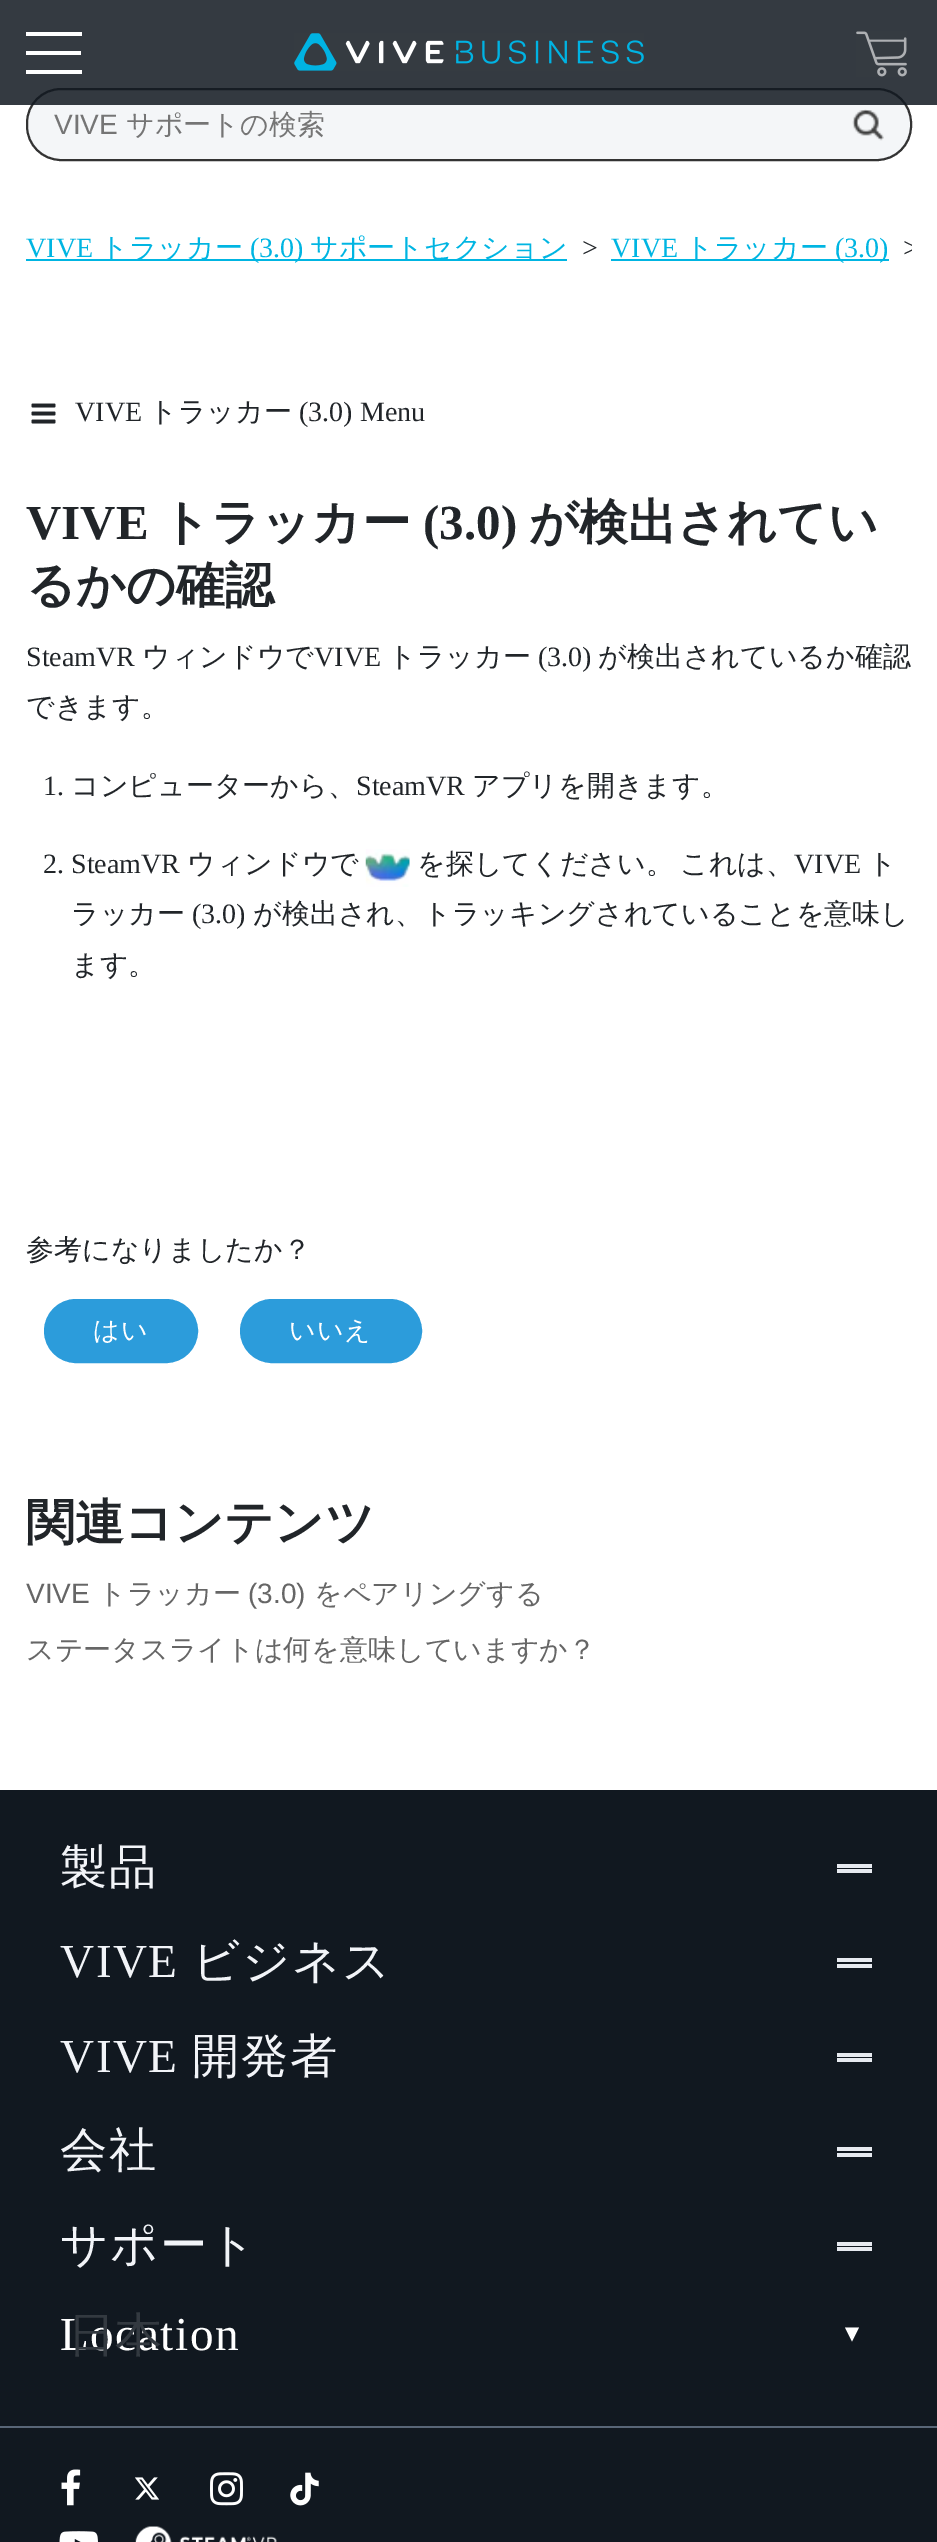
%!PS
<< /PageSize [937 2542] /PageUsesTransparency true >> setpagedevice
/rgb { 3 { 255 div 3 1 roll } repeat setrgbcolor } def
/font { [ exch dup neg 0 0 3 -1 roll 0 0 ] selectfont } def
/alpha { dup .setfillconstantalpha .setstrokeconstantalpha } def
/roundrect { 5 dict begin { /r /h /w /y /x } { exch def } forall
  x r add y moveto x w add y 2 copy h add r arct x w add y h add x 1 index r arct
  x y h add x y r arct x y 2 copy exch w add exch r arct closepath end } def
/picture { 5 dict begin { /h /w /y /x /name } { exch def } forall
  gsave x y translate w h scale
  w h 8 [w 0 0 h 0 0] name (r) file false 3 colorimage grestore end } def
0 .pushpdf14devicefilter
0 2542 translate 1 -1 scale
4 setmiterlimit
255 255 255 rgb
0 0 937 2542 rectfill
244 246 248 rgb
27 89 884 71 34 roundrect gsave fill grestore
51 51 51 rgb
2 setlinewidth
stroke
0.85 alpha
[
  [0 0 937 105 17 24 32]
] { aload pop rgb rectfill } forall
1 alpha
[
  [26 51 55 4 255 255 255]
  [26 32 56 4 255 255 255]
  [26 70 56 4 255 255 255]
] { aload pop rgb rectfill } forall
(img/1.rgb) 294 33 350 38 picture
(img/2.rgb) 856 31 51 46 picture
(img/3.rgb) 852 109 32 32 picture
0 181 226 rgb
26 259 541 2 rectfill
611 259 278 2 rectfill
(img/4.rgb) 31 403 25 21 picture
(img/5.rgb) 365 849 45 38 picture
44 156 219 rgb
45 1300 152 62 31 roundrect gsave fill grestore
stroke
241 1300 180 62 31 roundrect gsave fill grestore
stroke
[
  [0 1790 937 752 17 24 32]
  [837 1864 35 4 231 234 240]
  [837 1869 35 4 231 234 240]
  [837 1958 35 4 231 234 240]
  [837 1964 35 4 231 234 240]
  [837 2053 35 4 231 234 240]
  [837 2058 35 4 231 234 240]
  [837 2147 35 4 231 234 240]
  [837 2153 35 4 231 234 240]
  [837 2242 35 4 231 234 240]
  [837 2247 35 4 231 234 240]
  [0 2426 937 2 89 102 119]
] { aload pop rgb rectfill } forall
255 255 255 rgb
845 2327.5 moveto 859 2327.5 lineto 852 2341.5 lineto closepath fill
(img/6.rgb) 61 2469 20 37 picture
(img/7.rgb) 135 2477 24 23 picture
(img/8.rgb) 210 2472 33 34 picture
(img/9.rgb) 290 2472 29 34 picture
(img/10.rgb) 59 2531 39 11 picture
(img/11.rgb) 135 2526 142 16 picture
/LiberationSans-Regular 28 font
117 117 117 rgb
54 134 moveto (VIVE) show
/WenQuanYiZenHei-Medium 28 font
126 134 moveto (サポートの検索) show
/LiberationSerif-Regular 28 font
0 181 226 rgb
26 257 moveto (VIVE) show
/WenQuanYiZenHei-Medium 28 font
100 257 moveto (トラッカー) show
/LiberationSerif-Regular 28 font
250 257 moveto (\(3.0\)) show
/WenQuanYiZenHei-Medium 28 font
310 257 moveto (サポートセクション) show
/LiberationSerif-Regular 28 font
33 37 41 rgb
582 257 moveto (>) show
0 181 226 rgb
611 257 moveto (VIVE) show
/WenQuanYiZenHei-Medium 28 font
685 257 moveto (トラッカー) show
/LiberationSerif-Regular 28 font
835 257 moveto (\(3.0\)) show
gsave
26 228 886 42 rectclip
33 37 41 rgb
903 257 moveto (>) show
grestore
33 37 41 rgb
75 421 moveto (VIVE) show
/WenQuanYiZenHei-Medium 28 font
149 421 moveto (トラッカー) show
/LiberationSerif-Regular 28 font
299 421 moveto (\(3.0\) Menu) show
/LiberationSerif-Bold 49 font
26 539 moveto (VIVE) show
/WenQuanYiZenHei-Bold 49 font
161 539 moveto (トラッカー) show
/LiberationSerif-Bold 49 font
423 539 moveto (\(3.0\)) show
/WenQuanYiZenHei-Bold 49 font
529 539 moveto (が検出されてい) show
26 602 moveto (るかの確認) show
/LiberationSerif-Regular 28 font
26 666 moveto (SteamVR) show
/WenQuanYiZenHei-Medium 28 font
142 666 moveto (ウィンドウで) show
/LiberationSerif-Regular 28 font
314 666 moveto (VIVE) show
/WenQuanYiZenHei-Medium 28 font
388 666 moveto (トラッカー) show
/LiberationSerif-Regular 28 font
538 666 moveto (\(3.0\)) show
/WenQuanYiZenHei-Medium 28 font
598 666 moveto (が検出されているか確認) show
26 716 moveto (できます。) show
/LiberationSerif-Regular 28 font
43 795 moveto (1.) show
/WenQuanYiZenHei-Medium 28 font
71 795 moveto (コンピューターから、) show
/LiberationSerif-Regular 28 font
356 795 moveto (SteamVR) show
/WenQuanYiZenHei-Medium 28 font
472 795 moveto (アプリを開きます。) show
/LiberationSerif-Regular 28 font
43 873 moveto (2. SteamVR) show
/WenQuanYiZenHei-Medium 28 font
[
  [(ウィンドウで) 187 873]
  [(を探してください。) 417 873]
  [(これは、) 680 873]
] { aload pop moveto show } forall
/LiberationSerif-Regular 28 font
794 873 moveto (VIVE) show
/WenQuanYiZenHei-Medium 28 font
868 873 moveto (ト) show
71 923 moveto (ラッカー) show
/LiberationSerif-Regular 28 font
192 923 moveto (\(3.0\)) show
/WenQuanYiZenHei-Medium 28 font
[
  [(が検出され、トラッキングされていることを意味し) 253 923]
  [(ます。) 71 974]
  [(参考になりましたか？) 26 1259]
] { aload pop moveto show } forall
/WenQuanYiZenHei-Medium 26 font
255 255 255 rgb
93 1339 moveto 1 0 (はい) ashow
289 1339 moveto 1 0 (いいえ) ashow
/WenQuanYiZenHei-Bold 49 font
33 37 41 rgb
26 1539 moveto (関連コンテンツ) show
/LiberationSans-Regular 28 font
102 102 102 rgb
26 1603 moveto (VIVE) show
/WenQuanYiZenHei-Medium 28 font
98 1603 moveto (トラッカー) show
/LiberationSans-Regular 28 font
248 1603 moveto (\(3.0\)) show
/WenQuanYiZenHei-Medium 28 font
314 1603 moveto (をペアリングする) show
26 1659 moveto (ステータスライトは何を意味していますか？) show
/WenQuanYiZenHei-Medium 47.25 font
242 244 248 rgb
60 1883 moveto 1.5 0 (製品) ashow
/LiberationSerif-Regular 47.25 font
60 1977 moveto 1.5 0 (VIVE) ashow
/WenQuanYiZenHei-Medium 47.25 font
192 1977 moveto 1.5 0 (ビジネス) ashow
/LiberationSerif-Regular 47.25 font
60 2072 moveto 1.5 0 (VIVE) ashow
/WenQuanYiZenHei-Medium 47.25 font
192 2072 moveto 1.5 0 (開発者) ashow
60 2166 moveto 1.5 0 (会社) ashow
60 2261 moveto 1.5 0 (サポート) ashow
/LiberationSerif-Regular 47.25 font
255 255 255 rgb
60 2350 moveto 1.5 0 (Location) ashow
/WenQuanYiZenHei-Medium 47.25 font
51 57 64 rgb
68 2351 moveto (日本) show
.poppdf14devicefilter showpage
